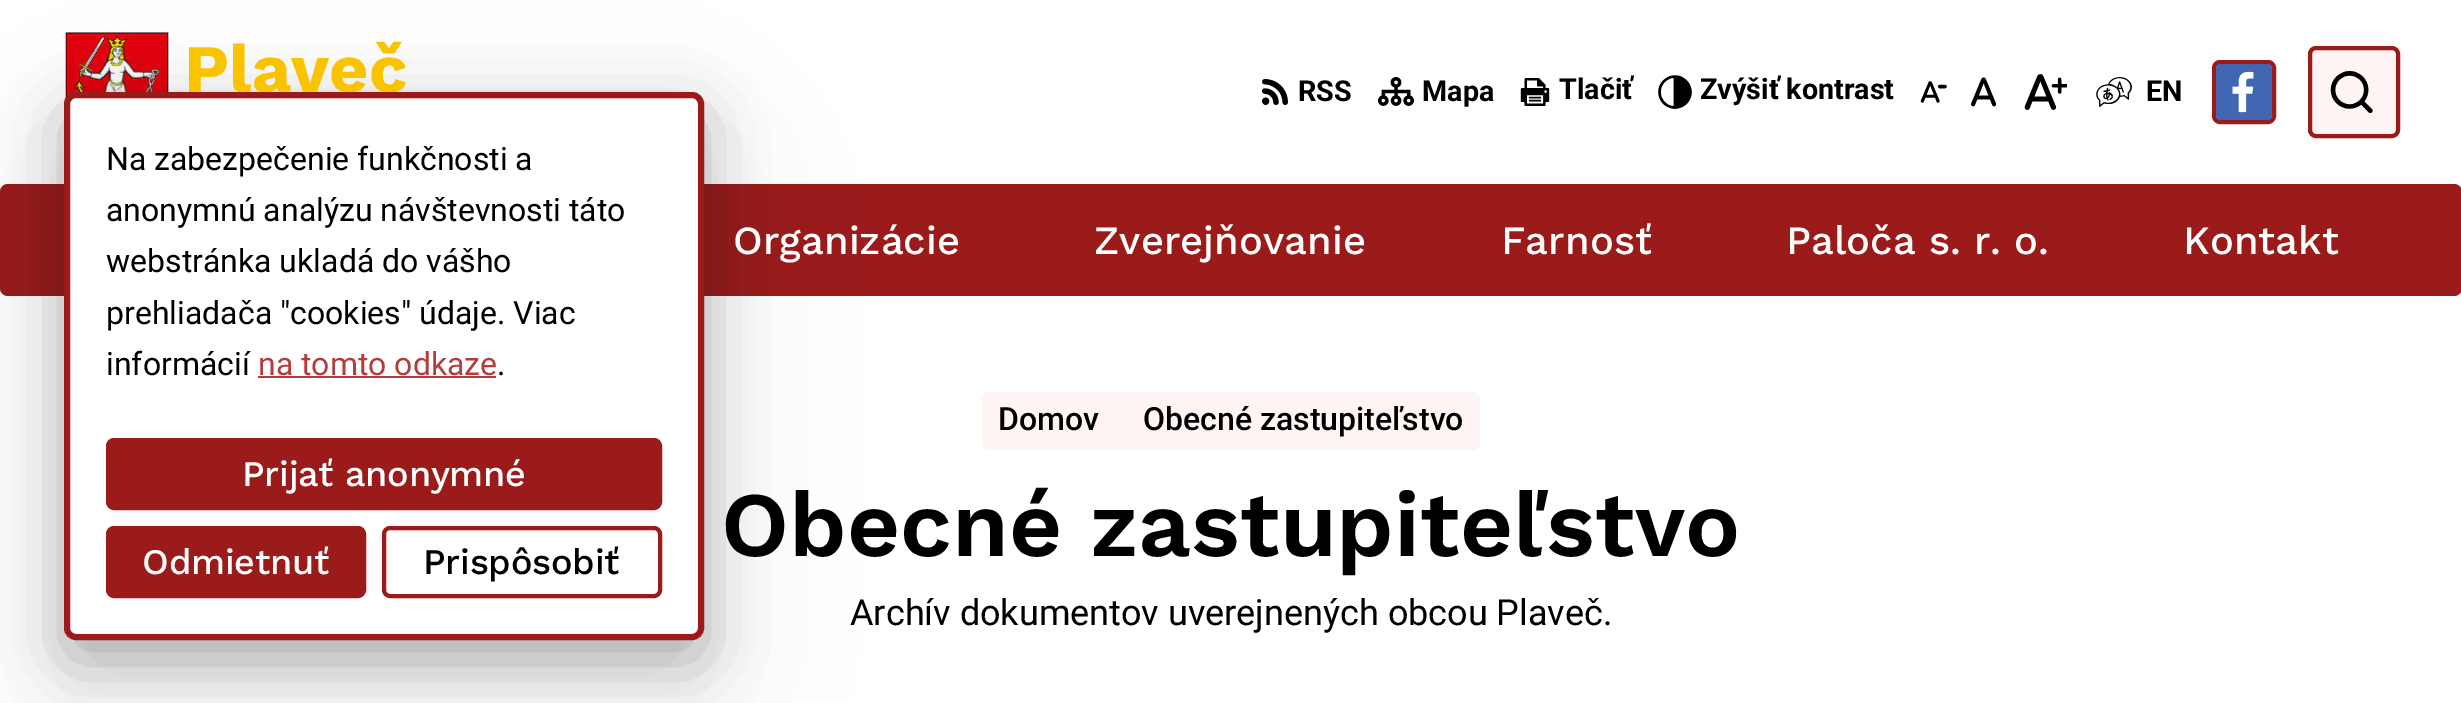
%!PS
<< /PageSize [2461 703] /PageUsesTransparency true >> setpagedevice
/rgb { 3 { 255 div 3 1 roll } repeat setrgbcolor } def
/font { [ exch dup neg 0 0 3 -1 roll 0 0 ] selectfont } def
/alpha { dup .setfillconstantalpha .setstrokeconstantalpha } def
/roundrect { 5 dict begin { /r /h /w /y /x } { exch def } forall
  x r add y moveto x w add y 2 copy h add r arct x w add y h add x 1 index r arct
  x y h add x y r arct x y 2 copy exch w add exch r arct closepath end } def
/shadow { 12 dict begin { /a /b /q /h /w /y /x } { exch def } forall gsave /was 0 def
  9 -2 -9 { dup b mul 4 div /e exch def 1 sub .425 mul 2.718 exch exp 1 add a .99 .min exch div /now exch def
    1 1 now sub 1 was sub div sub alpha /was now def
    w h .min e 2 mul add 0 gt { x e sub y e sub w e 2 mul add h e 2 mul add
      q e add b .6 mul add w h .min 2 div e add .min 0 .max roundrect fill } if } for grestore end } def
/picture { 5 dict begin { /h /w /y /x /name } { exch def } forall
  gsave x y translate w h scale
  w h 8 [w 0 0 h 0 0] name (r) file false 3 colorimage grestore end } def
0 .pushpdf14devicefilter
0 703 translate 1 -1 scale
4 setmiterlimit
255 255 255 rgb
0 0 2461 703 rectfill
(img/1.rgb) 65 32 104 68 picture
(img/2.rgb) 1262 79 26 26 picture
(img/3.rgb) 1377 77 38 29 picture
(img/4.rgb) 1520 78 30 28 picture
(img/5.rgb) 1658 75 34 34 picture
(img/6.rgb) 1920 81 27 22 picture
(img/7.rgb) 1971 77 25 30 picture
(img/8.rgb) 2024 74 43 36 picture
(img/9.rgb) 2096 77 36 30 picture
155 27 27 rgb
4 setlinewidth
2214 62 60 60 6 roundrect stroke
66 103 178 rgb
2216 64 56 56 4 roundrect fill
(img/10.rgb) 2232 71 22 42 picture
255 244 244 rgb
2310 48 88 88 6 roundrect gsave fill grestore
155 27 27 rgb
stroke
(img/11.rgb) 2330 71 43 42 picture
0 184 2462 112 8 roundrect fill
255 244 244 rgb
982 392 498 58 8 roundrect fill
0 0 0 rgb
64 152 640 548 12 90 0.05 shadow
64 132 640 548 12 60 0.05 shadow
64 112 640 548 12 30 0.25 shadow
/WorkSans-Bold 68 font
250 195 0 rgb
184 92 moveto (Plaveč) show
/Roboto-Bold 28.75 font
0 0 0 rgb
[
  [(RSS) 1298 101]
  [(Mapa) 1422 101]
  [(Tlačiť) 1559 99]
  [(Zvýšiť kontrast) 1700 99]
  [(EN) 2146 101]
] { aload pop moveto show } forall
/WorkSans-Medium 40 font
255 255 255 rgb
[
  [(Organizácie) 733 254]
  [(Zverejňovanie) 1094 254]
  [(Farnosť) 1501 254]
  [(Paloča s. r. o.) 1786 254]
  [(Kontakt) 2183 254]
] { aload pop moveto show } forall
/Roboto-Medium 32 font
0 0 0 rgb
998 430 moveto (Domov) show
1143 430 moveto (Obecné zastupiteľstvo) show
/WorkSans-SemiBold 92 font
721 556 moveto (Obecné zastupiteľstvo) show
/Roboto-Regular 36 font
850 625 moveto (Archív dokumentov uverejnených obcou Plaveč.) show
255 255 255 rgb
67 95 634 542 9 roundrect gsave fill grestore
155 27 27 rgb
6 setlinewidth
stroke
/Roboto-Regular 32 font
0 0 0 rgb
[
  [(Na zabezpečenie funkčnosti a) 106 170]
  [(anonymnú analýzu návštevnosti táto) 106 221]
  [(webstránka ukladá do vášho) 106 272]
  [(prehliadača "cookies" údaje. Viac) 106 324]
  [(informácií) 106 375]
] { aload pop moveto show } forall
179 60 60 rgb
258 375 moveto (na tomto odkaze) show
258 376 238 2 rectfill
0 0 0 rgb
497 375 moveto (.) show
155 27 27 rgb
108 440 552 68 6 roundrect gsave fill grestore
4 setlinewidth
stroke
/WorkSans-Medium 36 font
255 255 255 rgb
242 486 moveto -0.25 0 (Prijať anonymné) ashow
155 27 27 rgb
108 528 256 68 6 roundrect gsave fill grestore
stroke
255 255 255 rgb
142 574 moveto -0.25 0 (Odmietnuť) ashow
155 27 27 rgb
384 528 276 68 6 roundrect stroke
0 0 0 rgb
423 574 moveto -0.25 0 (Prispôsobiť) ashow
.poppdf14devicefilter showpage
